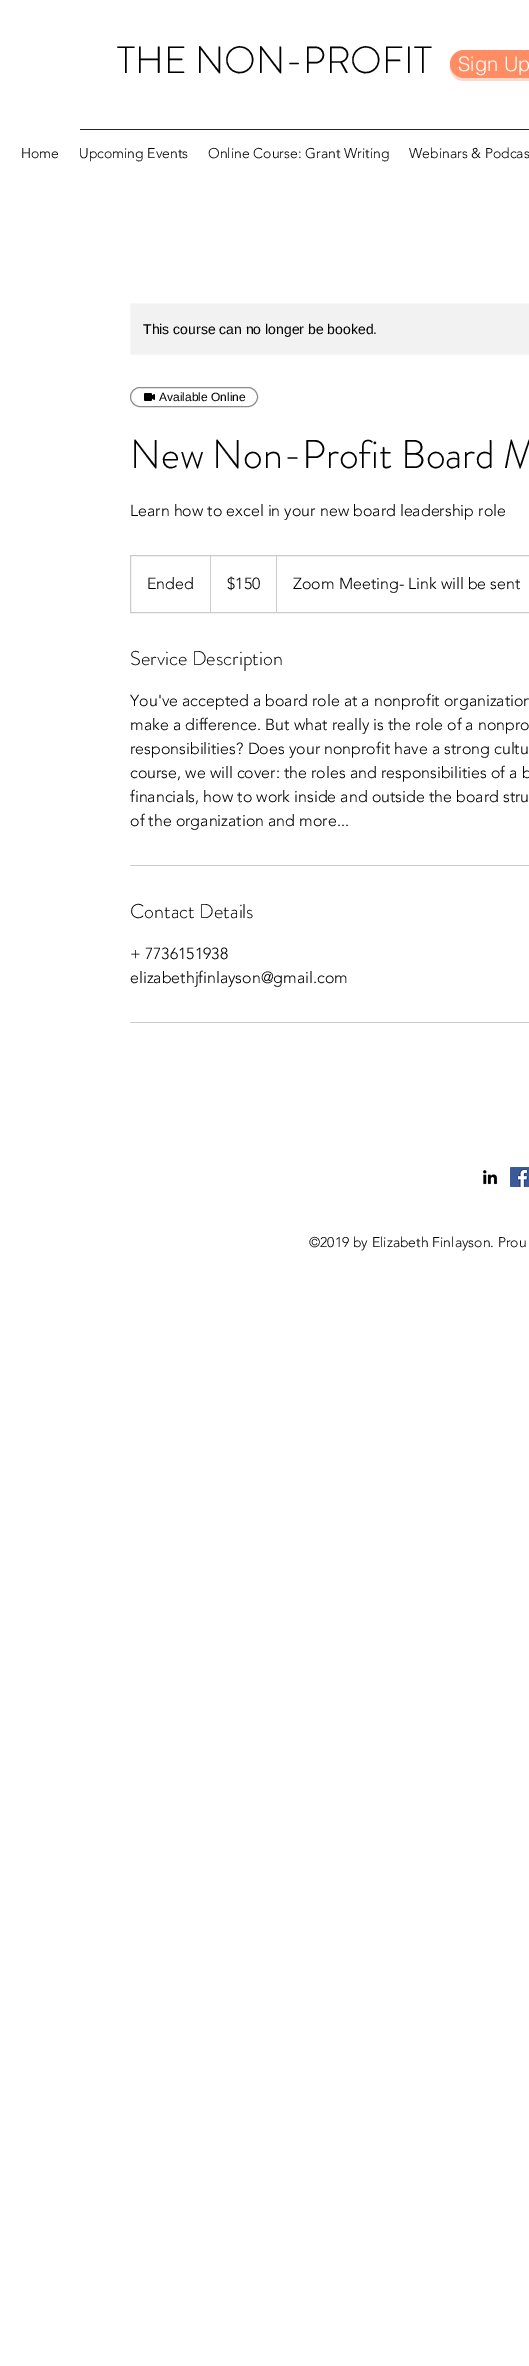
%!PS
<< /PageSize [529 2366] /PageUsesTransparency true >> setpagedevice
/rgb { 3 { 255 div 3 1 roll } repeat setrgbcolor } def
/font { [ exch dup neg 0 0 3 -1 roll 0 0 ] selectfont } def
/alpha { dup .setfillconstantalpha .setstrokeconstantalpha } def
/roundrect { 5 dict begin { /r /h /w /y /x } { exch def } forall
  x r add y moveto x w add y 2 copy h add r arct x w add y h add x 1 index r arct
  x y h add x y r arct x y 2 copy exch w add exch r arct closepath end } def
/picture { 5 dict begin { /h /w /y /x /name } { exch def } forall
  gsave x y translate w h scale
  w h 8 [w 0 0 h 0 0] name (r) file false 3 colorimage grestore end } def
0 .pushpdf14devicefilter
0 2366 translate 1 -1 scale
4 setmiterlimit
255 255 255 rgb
0 0 529 2366 rectfill
0.35 alpha
255 140 98 rgb
450 66 moveto 449 74 456 81 464 81 curveto 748 81 lineto 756 81 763 74 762 66 curveto 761 73 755 78 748 78 curveto 464 78 lineto 457 78 451 73 450 66 curveto closepath fill
1 alpha
450 50 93 28 14 roundrect fill
38 38 38 rgb
80 129 449 1 rectfill
242 242 242 rgb
130.5 303.5 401 51 1.5 roundrect gsave fill grestore
247 247 247 rgb
stroke
140 140 140 rgb
130.5 387.5 127 19 9.5 roundrect stroke
(img/1.rgb) 144 393 11 8 picture
204 204 204 rgb
130.5 555.5 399 57 rectstroke
210 612 moveto 210 555 lineto 211 556 lineto 211 612 lineto closepath fill
276 612 moveto 276 555 lineto 277 556 lineto 277 612 lineto closepath fill
130 865 399 1 rectfill
130 1022 399 1 rectfill
(img/2.rgb) 483 1170 15 15 picture
(img/3.rgb) 510 1167 19 20 picture
/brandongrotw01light-Light 38 font
0 0 0 rgb
117 73 moveto (THE NON-PROFIT) show
/helvetica-Light 20 font
255 255 255 rgb
458 71 moveto (Sign Up) show
/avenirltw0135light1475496-Light 14 font
0 0 0 rgb
[
  [(Home) 21 158]
  [(Upcoming Events) 79 158]
  [(Online Course: Grant Writing) 208 158]
  [(Webinars & Podcas) 409 158]
] { aload pop moveto show } forall
/LiberationSans-Regular 14 font
143 334 moveto (This course can no longer be booked.) show
/LiberationSans-Regular 12 font
159 401 moveto (Available Online) show
/brandongrotw01light-Light 40 font
130 468 moveto (New Non-Profit Board M) show
/avenirltw0135light1475496-Light 16 font
[
  [(Learn how to excel in your new board leadership role) 130 516]
  [(Ended) 147 589]
  [($150) 227 589]
  [(Zoom Meeting- Link will be sent) 293 589]
] { aload pop moveto show } forall
/brandongrotw01light-Light 20 font
130 665 moveto (Service Description) show
/avenirltw0135light1475496-Light 16 font
[
  [(You've accepted a board role at a nonprofit organization) 130 706]
  [(make a difference. But what really is the role of a nonpro) 130 730]
  [(responsibilities? Does your nonprofit have a strong cultu) 130 754]
  [(course, we will cover: the roles and responsibilities of a b) 130 778]
  [(financials, how to work inside and outside the board stru) 130 802]
  [(of the organization and more...) 130 826]
] { aload pop moveto show } forall
/brandongrotw01light-Light 20 font
130 918 moveto (Contact Details) show
/avenirltw0135light1475496-Light 16 font
130 959 moveto (+ 7736151938) show
130 983 moveto (elizabethjfinlayson@gmail.com) show
/avenirltw0135light1475496-Light 14 font
309 1247 moveto (©2019 by Elizabeth Finlayson. Prou) show
.poppdf14devicefilter showpage
